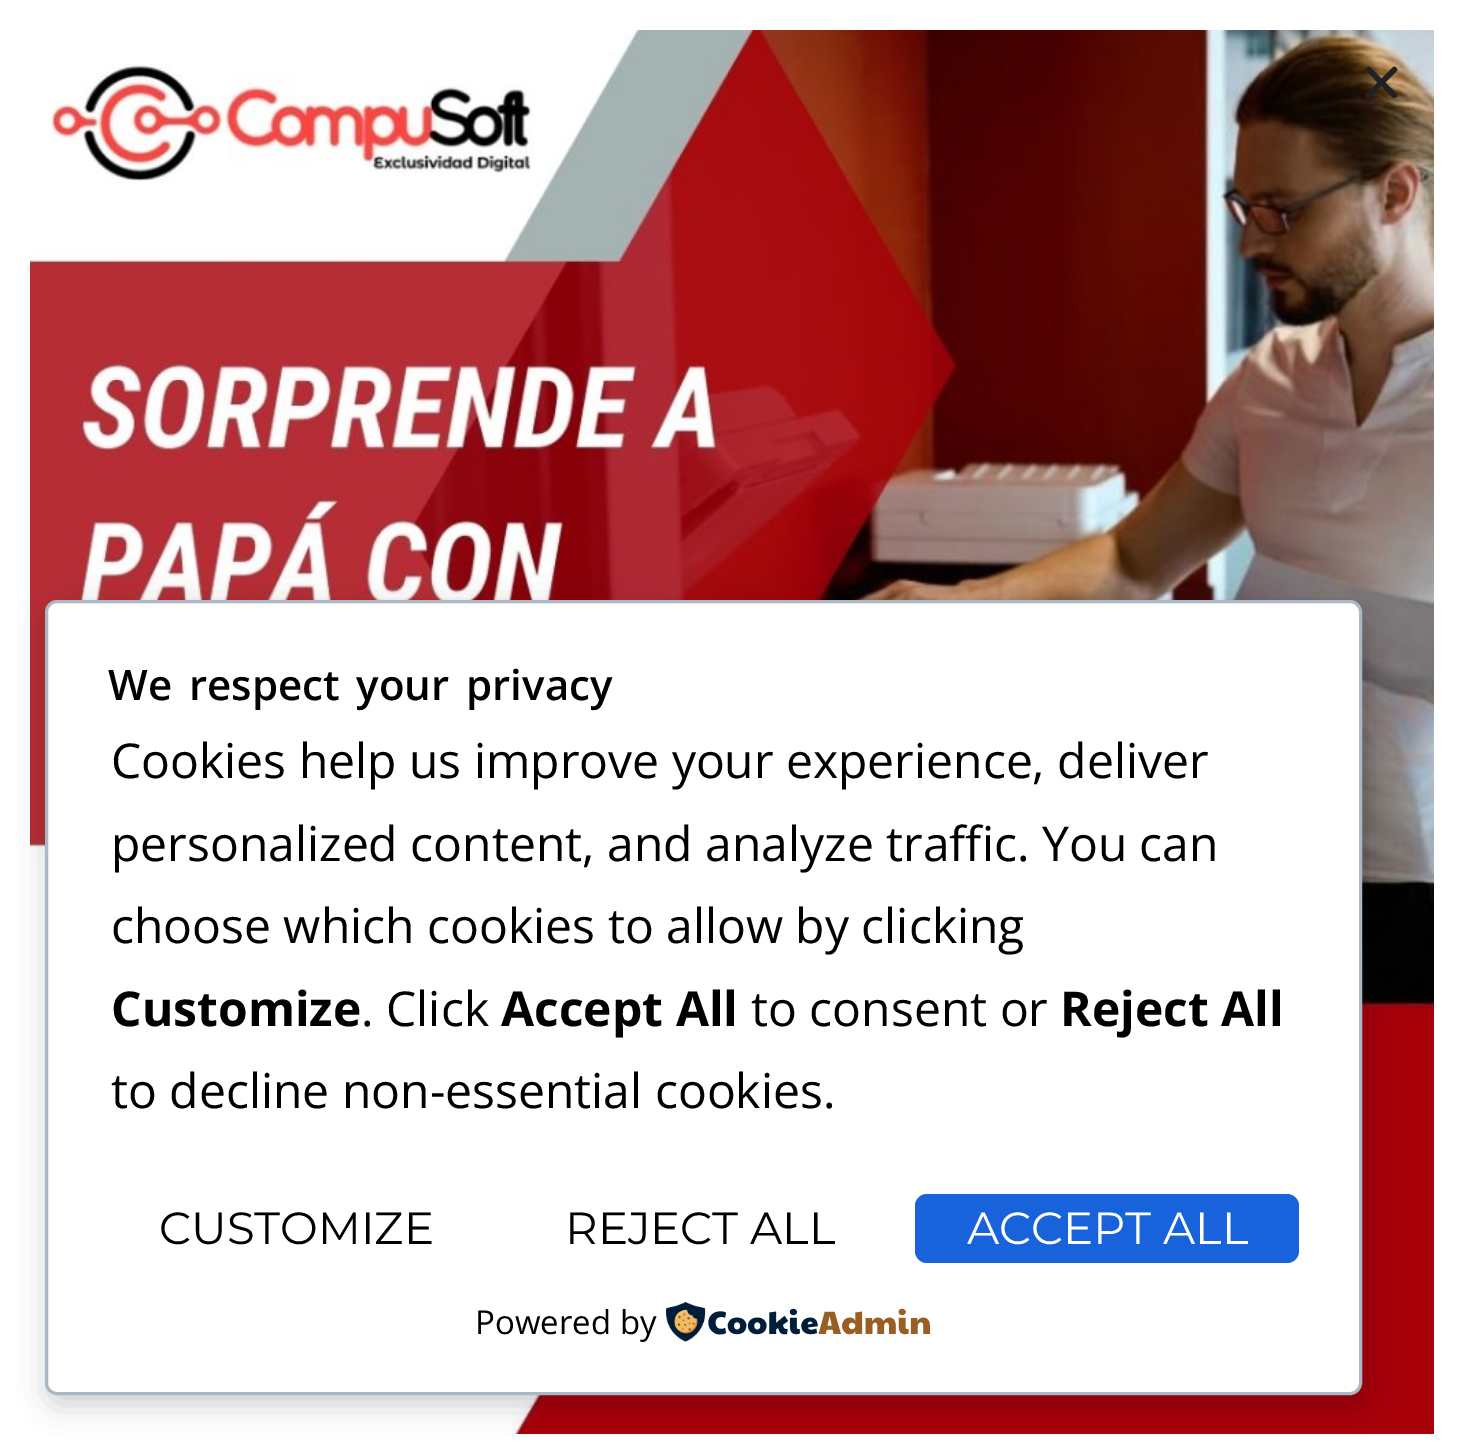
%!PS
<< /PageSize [1462 1453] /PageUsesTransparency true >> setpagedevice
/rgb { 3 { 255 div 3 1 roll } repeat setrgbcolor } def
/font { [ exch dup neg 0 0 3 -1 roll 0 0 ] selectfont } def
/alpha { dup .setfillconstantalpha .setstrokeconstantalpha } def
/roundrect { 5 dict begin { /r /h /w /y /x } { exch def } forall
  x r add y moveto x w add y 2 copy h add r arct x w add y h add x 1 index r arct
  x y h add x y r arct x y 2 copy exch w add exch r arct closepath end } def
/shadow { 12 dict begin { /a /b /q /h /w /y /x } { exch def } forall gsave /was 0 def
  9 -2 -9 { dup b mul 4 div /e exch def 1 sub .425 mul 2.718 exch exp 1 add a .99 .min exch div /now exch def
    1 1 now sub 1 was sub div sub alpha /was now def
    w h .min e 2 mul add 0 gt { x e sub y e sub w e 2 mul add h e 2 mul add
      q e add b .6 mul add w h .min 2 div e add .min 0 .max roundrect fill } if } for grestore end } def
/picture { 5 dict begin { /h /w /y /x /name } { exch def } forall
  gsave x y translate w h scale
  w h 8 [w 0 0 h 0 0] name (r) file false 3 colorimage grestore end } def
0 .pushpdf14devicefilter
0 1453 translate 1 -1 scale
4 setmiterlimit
255 255 255 rgb
0 0 1462 1453 rectfill
(img/1.rgb) 30 30 1404 1404 picture
(img/2.rgb) 1365 66 33 33 picture
0 0 0 rgb
48 609 1317 795 12 15 0.2 shadow
255 255 255 rgb
46.5 601.5 1314 792 10.5 roundrect gsave fill grestore
171 184 195 rgb
3 setlinewidth
stroke
24 99 220 rgb
915 1194 384 69 12 roundrect fill
(img/3.rgb) 666 1302 265 40 picture
/OpenSans-SemiBold 42 font
0 0 0 rgb
108 700 moveto 6 0 32 (We respect your privacy) widthshow
/OpenSans-Regular 48 font
[
  [(Cookies help us improve your experience, deliver) 111 778]
  [(personalized content, and analyze traffic. You can) 111 861]
  [(choose which cookies to allow by clicking) 111 943]
] { aload pop moveto show } forall
/OpenSans-Bold 48 font
111 1026 moveto (Customize) show
/OpenSans-Regular 48 font
361 1026 moveto (. Click) show
/OpenSans-Bold 48 font
501 1026 moveto (Accept All) show
/OpenSans-Regular 48 font
751 1026 moveto (to consent or) show
/OpenSans-Bold 48 font
1060 1026 moveto (Reject All) show
/OpenSans-Regular 48 font
111 1108 moveto (to decline non-essential cookies.) show
/Montserrat-Regular 45 font
159 1244 moveto (CUSTOMIZE) show
565 1244 moveto (REJECT ALL) show
255 255 255 rgb
967 1244 moveto (ACCEPT ALL) show
/OpenSans-Regular 33 font
0 0 0 rgb
475 1334 moveto (Powered by) show
.poppdf14devicefilter showpage
